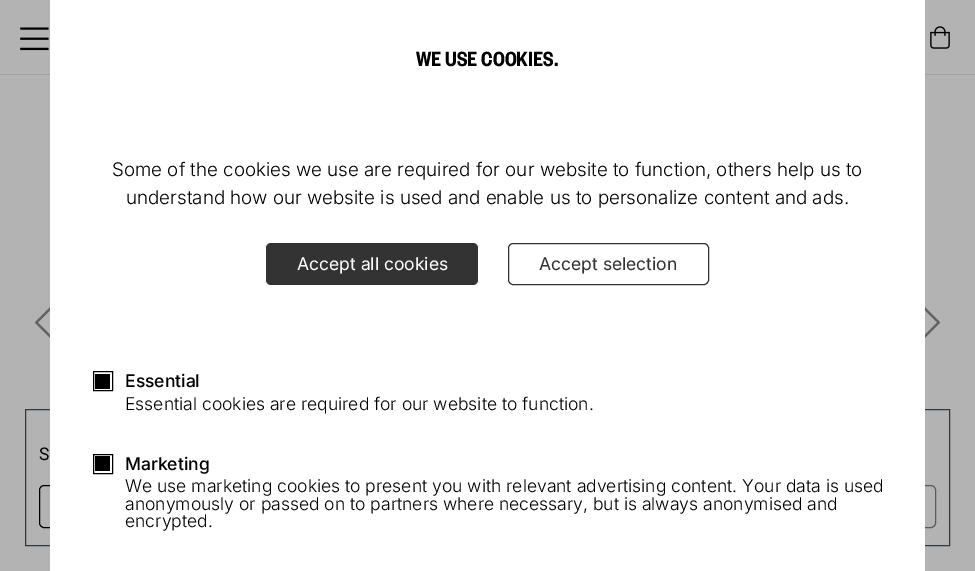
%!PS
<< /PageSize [975 571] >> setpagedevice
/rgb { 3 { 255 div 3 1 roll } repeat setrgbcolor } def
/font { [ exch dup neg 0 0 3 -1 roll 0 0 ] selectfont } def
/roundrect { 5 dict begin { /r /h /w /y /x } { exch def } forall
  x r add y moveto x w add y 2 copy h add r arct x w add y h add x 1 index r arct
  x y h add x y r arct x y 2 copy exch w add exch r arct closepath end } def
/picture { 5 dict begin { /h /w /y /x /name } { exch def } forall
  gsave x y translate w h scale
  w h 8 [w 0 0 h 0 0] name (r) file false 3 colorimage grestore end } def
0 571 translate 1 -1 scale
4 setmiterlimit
179 179 179 rgb
0 0 975 571 rectfill
160 160 160 rgb
0 74 975 1 rectfill
(img/1.rgb) 20 27 29 24 picture
(img/2.rgb) 930 26 20 23 picture
(img/3.rgb) 34 307 16 31 picture
(img/4.rgb) 925 307 16 31 picture
51 56 61 rgb
25.5 409.5 924 136 rectstroke
0 0 0 rgb
39.5 485.5 78 42 4.5 roundrect stroke
91 91 91 rgb
839.5 485.5 96 42 4.5 roundrect stroke
255 255 255 rgb
50 0 875 571 rectfill
51 51 51 rgb
266 243 212 42 5 roundrect fill
508.5 243.5 200 41 4.5 roundrect stroke
0 0 0 rgb
93.5 371.5 19 19 rectstroke
95 374 15 15 rectfill
93.5 454.5 19 19 rectstroke
95 456 15 15 rectfill
/Roboto-Regular 17.5 font
39 460 moveto (S) show
/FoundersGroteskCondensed-SemiBold 22.5 font
416 66 moveto (WE USE COOKIES.) show
/Inter-Light 18.75 font
112 176 moveto (Some of the cookies we use are required for our website to function, others help us to) show
126 204 moveto (understand how our website is used and enable us to personalize content and ads.) show
/Inter-Regular 17.5 font
255 255 255 rgb
297 270 moveto (Accept all cookies) show
51 51 51 rgb
539 270 moveto (Accept selection) show
/Inter-Medium 17.5 font
0 0 0 rgb
125 387 moveto (Essential) show
/Inter-Light 17.5 font
125 410 moveto (Essential cookies are required for our website to function.) show
/Inter-Medium 17.5 font
125 470 moveto (Marketing) show
/Inter-Light 17.5 font
[
  [(We use marketing cookies to present you with relevant advertising content. Your data is used) 125 492]
  [(anonymously or passed on to partners where necessary, but is always anonymised and) 125 510]
  [(encrypted.) 125 527]
] { aload pop moveto show } forall
showpage
